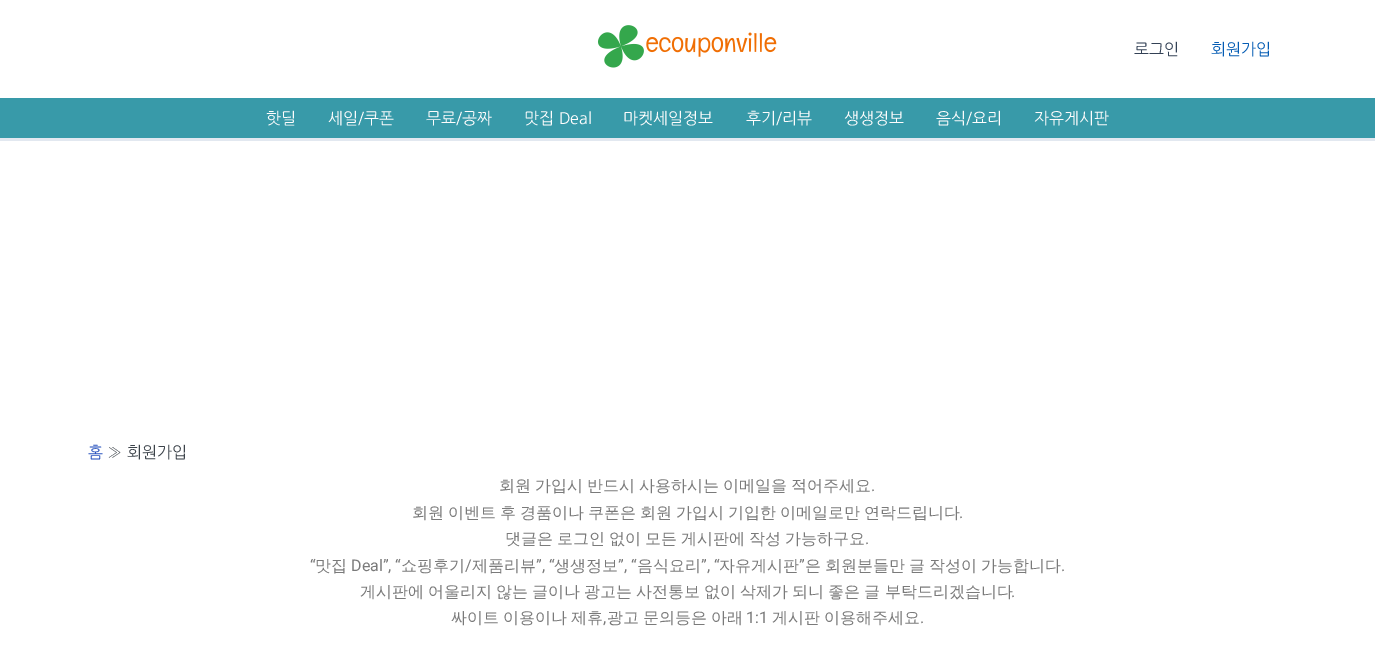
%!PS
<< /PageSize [1375 655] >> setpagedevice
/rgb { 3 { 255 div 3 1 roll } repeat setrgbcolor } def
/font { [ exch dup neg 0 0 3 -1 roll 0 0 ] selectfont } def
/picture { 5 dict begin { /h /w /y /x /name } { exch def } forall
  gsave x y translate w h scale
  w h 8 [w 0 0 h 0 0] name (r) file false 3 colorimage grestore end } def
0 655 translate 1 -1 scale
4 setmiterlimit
255 255 255 rgb
0 0 1375 655 rectfill
(img/1.rgb) 598 25 179 43 picture
56 154 169 rgb
0 98 1375 40 rectfill
226 232 240 rgb
0 138 1375 3 rectfill
/NanumGothic-Regular 16 font
51 65 85 rgb
1134 55 moveto (로그인) show
4 92 180 rgb
1211 55 moveto (회원가입) show
254 253 253 rgb
[
  [(핫딜) 266 124]
  [(세일/쿠폰) 328 124]
  [(무료/공짜) 426 124]
  [(맛집 Deal) 524 124]
  [(마켓세일정보) 623 124]
  [(후기/리뷰) 746 124]
  [(생생정보) 844 124]
  [(음식/요리) 936 124]
  [(자유게시판) 1034 124]
] { aload pop moveto show } forall
39 82 190 rgb
88 458 moveto (홈) show
60 67 74 rgb
107 458 moveto (») show
127 458 moveto (회원가입) show
/WenQuanYiZenHei-Medium 16 font
122 122 122 rgb
499 491 moveto -0.75 0 32 (회원 가입시 반드시 사용하시는 이메일을 적어주세요) widthshow
/Roboto-Regular 16 font
871 491 moveto (.) show
/WenQuanYiZenHei-Medium 16 font
412 518 moveto -0.75 0 32 (회원 이벤트 후 경품이나 쿠폰은 회원 가입시 기입한 이메일로만 연락드립니다) widthshow
/Roboto-Regular 16 font
959 518 moveto (.) show
/WenQuanYiZenHei-Medium 16 font
505 544 moveto -0.75 0 32 (댓글은 로그인 없이 모든 게시판에 작성 가능하구요) widthshow
/Roboto-Regular 16 font
865 544 moveto (.) show
310 571 moveto (“) show
/WenQuanYiZenHei-Medium 16 font
315 571 moveto (맛집) show
/Roboto-Regular 16 font
351 571 moveto (Deal”, “) show
/WenQuanYiZenHei-Medium 16 font
401 571 moveto (쇼핑후기) show
/Roboto-Regular 16 font
465 571 moveto (/) show
/WenQuanYiZenHei-Medium 16 font
472 571 moveto (제품리뷰) show
/Roboto-Regular 16 font
536 571 moveto (”, “) show
/WenQuanYiZenHei-Medium 16 font
554 571 moveto (생생정보) show
/Roboto-Regular 16 font
618 571 moveto (”, “) show
/WenQuanYiZenHei-Medium 16 font
637 571 moveto (음식요리) show
/Roboto-Regular 16 font
701 571 moveto (”, “) show
/WenQuanYiZenHei-Medium 16 font
719 571 moveto (자유게시판) show
/Roboto-Regular 16 font
799 571 moveto (”) show
/WenQuanYiZenHei-Medium 16 font
[
  [(은) 805 571]
  [(회원분들만) 825 571]
  [(글) 909 571]
  [(작성이) 929 571]
  [(가능합니다) 981 571]
] { aload pop moveto show } forall
/Roboto-Regular 16 font
1061 571 moveto (.) show
/WenQuanYiZenHei-Medium 16 font
360 597 moveto -0.75 0 32 (게시판에 어울리지 않는 글이나 광고는 사전통보 없이 삭제가 되니 좋은 글 부탁드리겠습니다) widthshow
/Roboto-Regular 16 font
1011 597 moveto (.) show
/WenQuanYiZenHei-Medium 16 font
451 623 moveto -1 0 32 (싸이트 이용이나 제휴) widthshow
/Roboto-Regular 16 font
603 623 moveto (,) show
/WenQuanYiZenHei-Medium 16 font
607 623 moveto -1 0 32 (광고 문의등은 아래) widthshow
/Roboto-Regular 16 font
746 623 moveto (1:1) show
/WenQuanYiZenHei-Medium 16 font
772 623 moveto -1 0 32 (게시판 이용해주세요) widthshow
/Roboto-Regular 16 font
920 623 moveto (.) show
showpage
